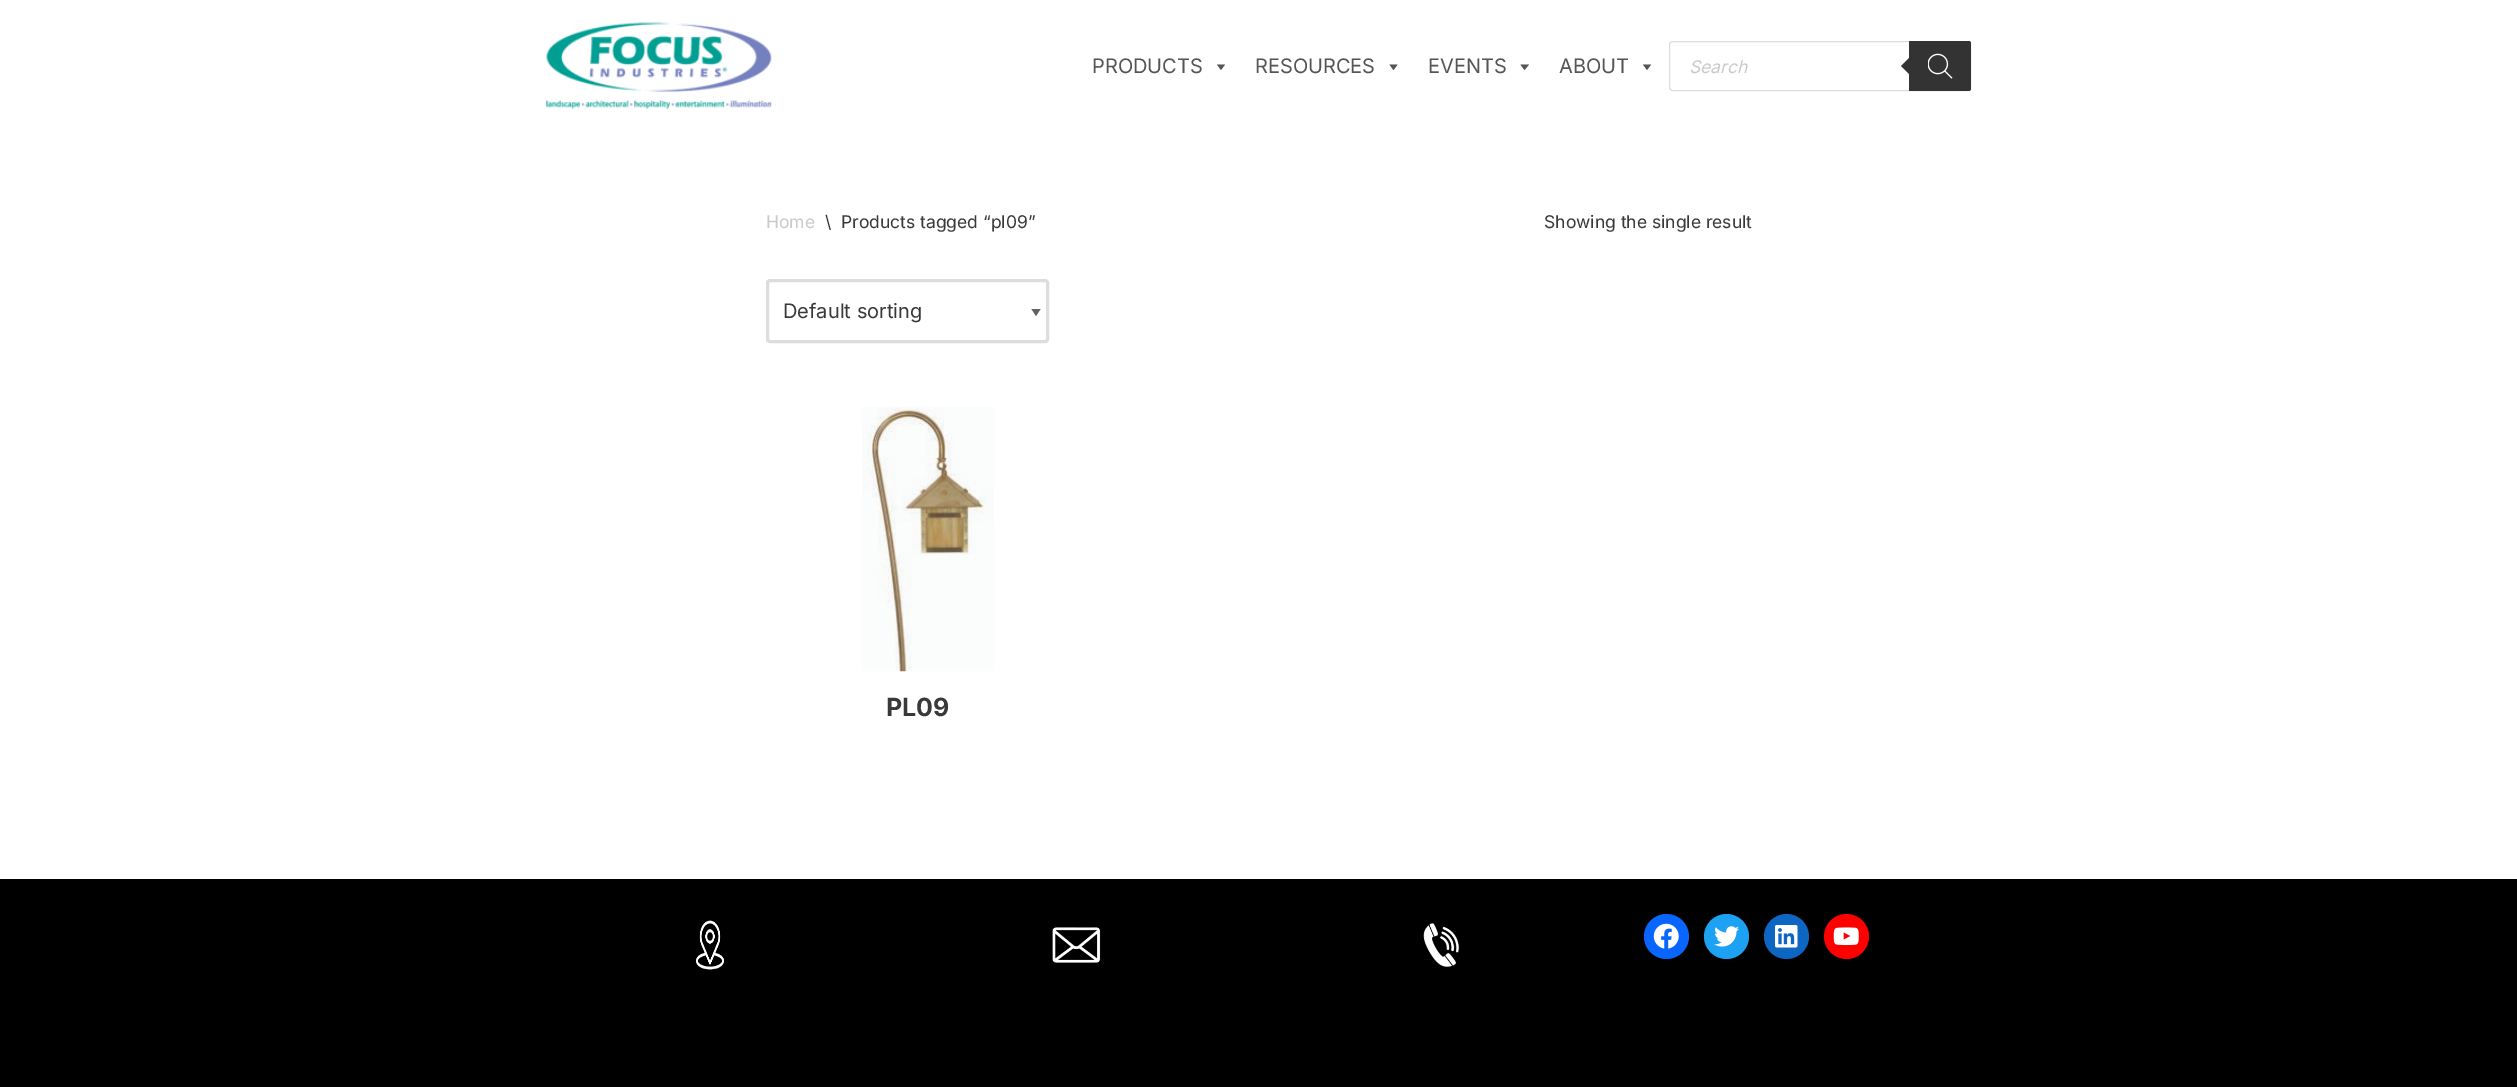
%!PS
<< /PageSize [2517 1087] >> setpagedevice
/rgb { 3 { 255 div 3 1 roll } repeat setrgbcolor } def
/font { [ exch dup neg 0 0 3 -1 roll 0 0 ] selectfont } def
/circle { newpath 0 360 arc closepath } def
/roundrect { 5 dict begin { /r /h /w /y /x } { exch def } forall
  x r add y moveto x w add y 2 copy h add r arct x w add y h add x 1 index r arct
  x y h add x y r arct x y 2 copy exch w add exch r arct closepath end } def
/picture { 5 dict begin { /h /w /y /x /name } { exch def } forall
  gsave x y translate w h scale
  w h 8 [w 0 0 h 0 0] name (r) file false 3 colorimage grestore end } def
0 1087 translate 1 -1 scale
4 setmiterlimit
255 255 255 rgb
0 0 2517 1087 rectfill
(img/1.rgb) 546 22 226 87 picture
85 85 85 rgb
1225 64.5 moveto 1221 70 lineto 1217 64.5 lineto closepath fill
1397.5 64.5 moveto 1393.5 70 lineto 1389.5 64.5 lineto closepath fill
1529 64.5 moveto 1524.5 70 lineto 1520.5 64.5 lineto closepath fill
1651 64.5 moveto 1647 70 lineto 1643 64.5 lineto closepath fill
221 221 221 rgb
1669.5 41.5 301 49 3.5 roundrect stroke
51 51 51 rgb
1909 41 moveto 1968.5 41 lineto 1970 41 1971 42 1971 43.5 curveto 1971 88.5 lineto 1971 90 1970 91 1968.5 91 curveto 1909 91 lineto closepath fill
1911 56 moveto 1911 76 lineto 1901 66 lineto closepath fill
(img/2.rgb) 1928 53 25 26 picture
98 98 98 rgb
1040.5 309 moveto 1036 316 lineto 1031.5 309 lineto closepath fill
221 221 221 rgb
3 setlinewidth
767.5 280.5 280 61 2.5 roundrect stroke
(img/3.rgb) 862 407 132 265 picture
0 0 0 rgb
0 879 2517 208 rectfill
(img/4.rgb) 696 920 28 50 picture
(img/5.rgb) 1052 927 49 36 picture
(img/6.rgb) 1423 923 36 44 picture
8 102 255 rgb
1666.5 936.5 22.5 circle fill
(img/7.rgb) 1653 923 26 26 picture
29 161 242 rgb
1726.5 936.5 22.5 circle fill
(img/8.rgb) 1714 926 25 21 picture
13 102 194 rgb
1786.5 936.5 22.5 circle fill
(img/9.rgb) 1775 925 23 23 picture
255 0 0 rgb
1846.5 936.5 22.5 circle fill
(img/10.rgb) 1833 927 26 19 picture
/Inter-Regular 20 font
85 85 85 rgb
[
  [(PRODUCTS) 1092 73]
  [(RESOURCES) 1255 73]
  [(EVENTS) 1428 73]
  [(ABOUT) 1559 73]
] { aload pop moveto show } forall
/Inter-Italic 17.5 font
204 201 201 rgb
1689 73 moveto (Search) show
/Inter-Regular 17.5 font
766 228 moveto (Home) show
57 57 57 rgb
[
  [(\\) 825 228]
  [(Products tagged “pl09”) 841 228]
  [(Showing the single result) 1544 228]
] { aload pop moveto show } forall
/Inter-Regular 20 font
783 318 moveto (Default sorting) show
/Inter-Bold 25 font
886 716 moveto (PL09) show
showpage
